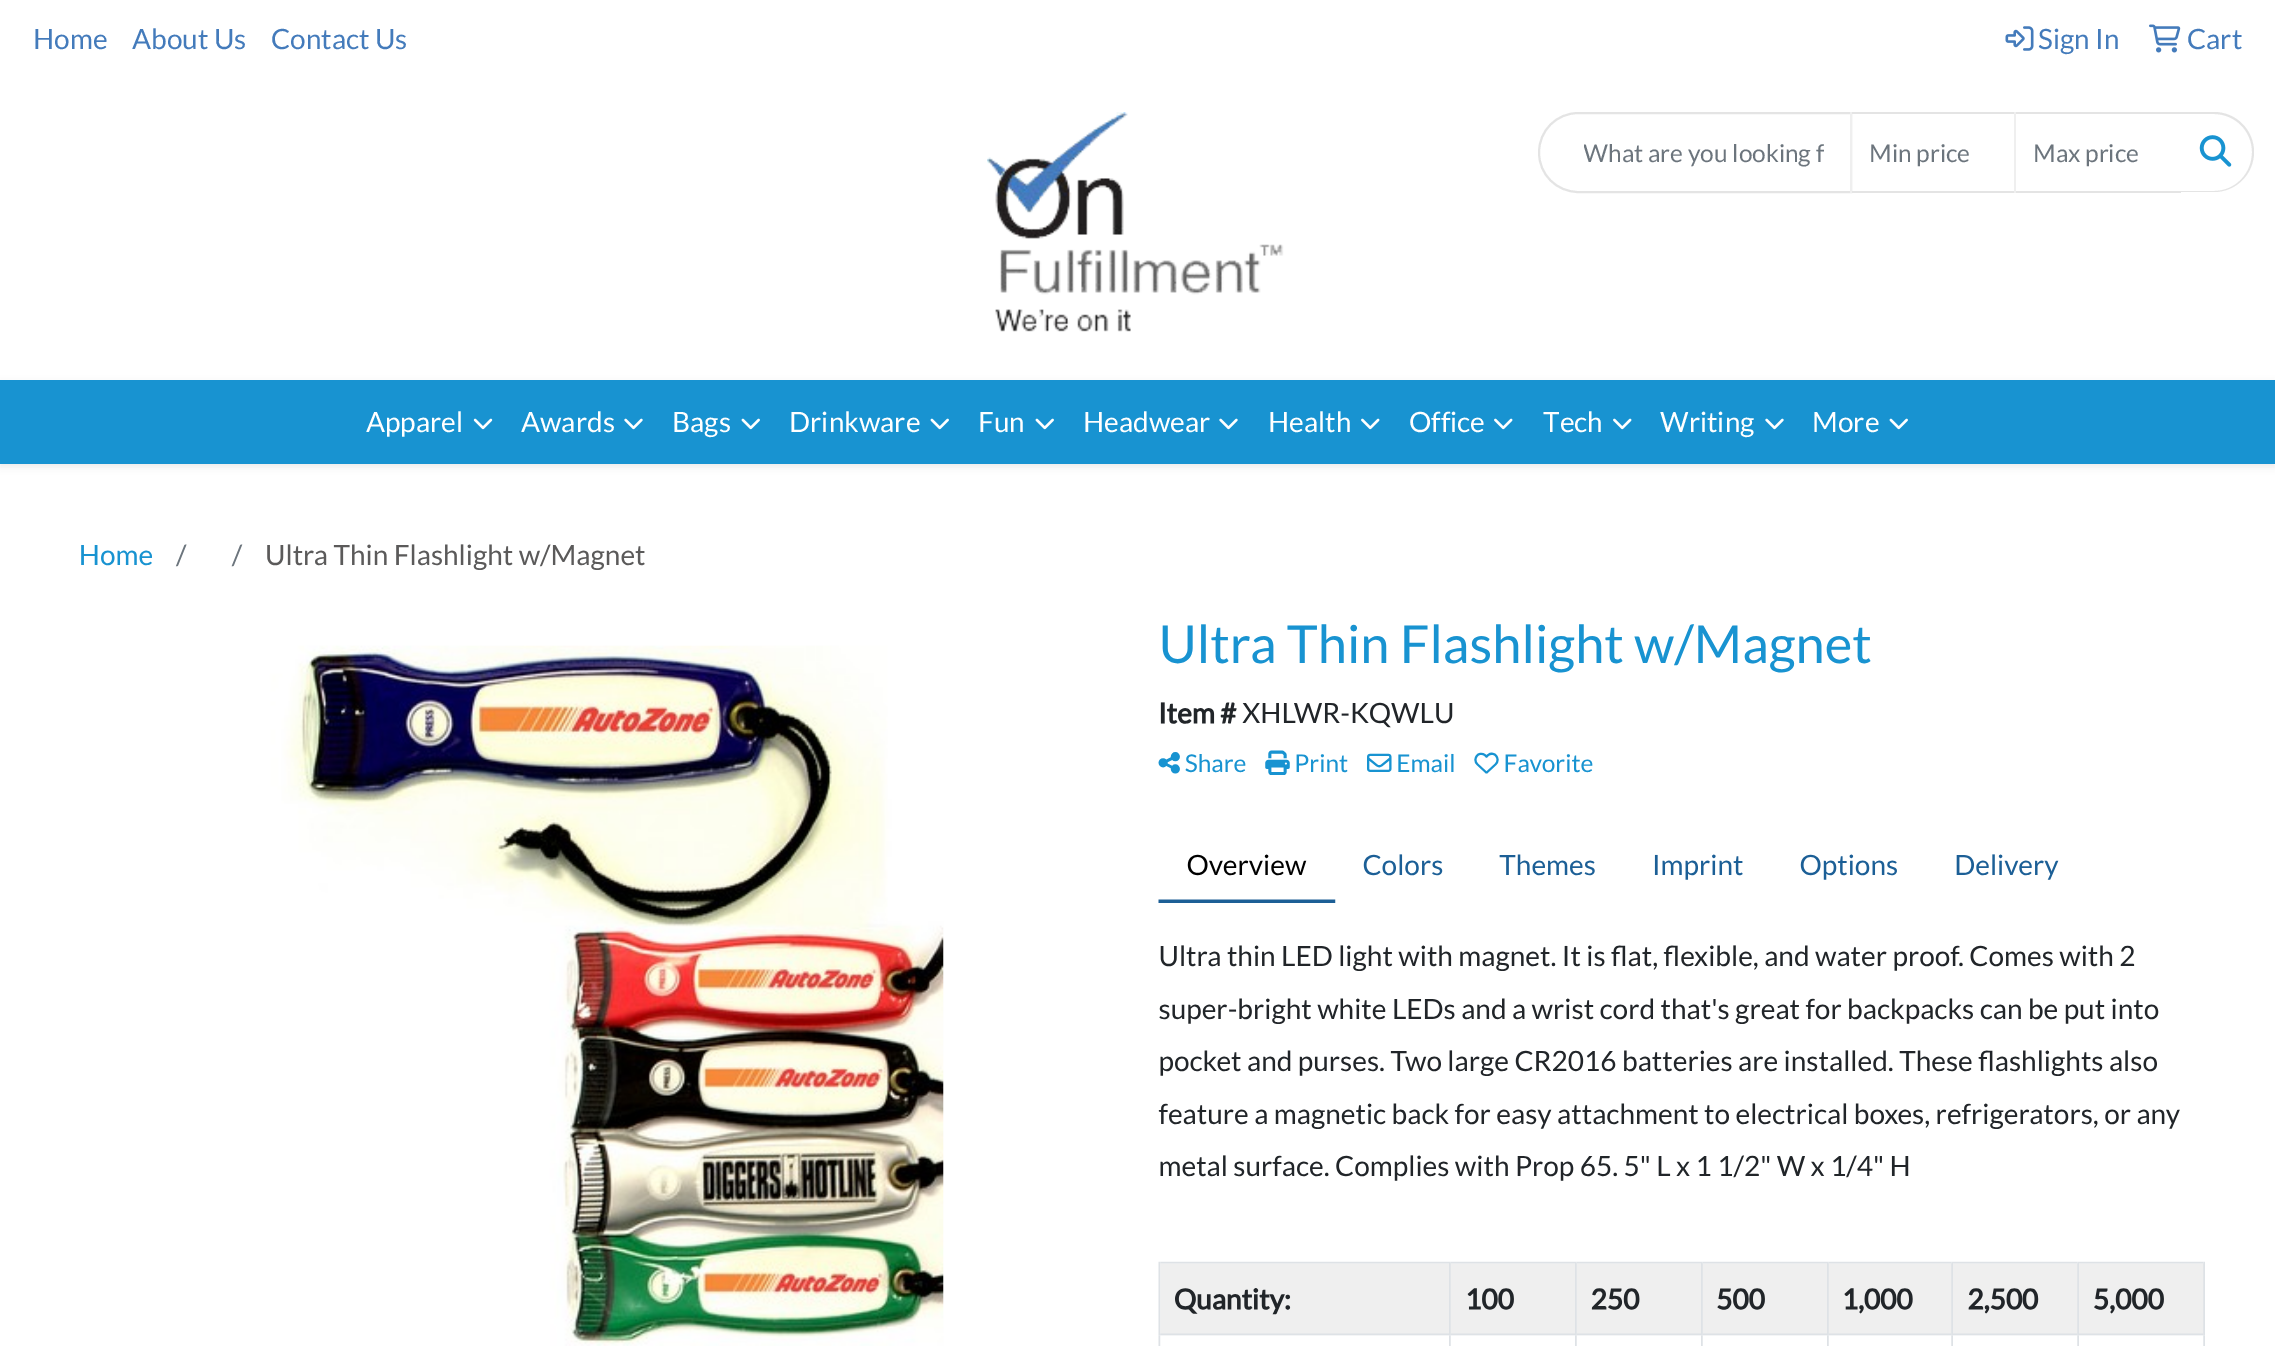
%!PS
<< /PageSize [2275 1346] /PageUsesTransparency true >> setpagedevice
/rgb { 3 { 255 div 3 1 roll } repeat setrgbcolor } def
/font { [ exch dup neg 0 0 3 -1 roll 0 0 ] selectfont } def
/alpha { dup .setfillconstantalpha .setstrokeconstantalpha } def
/roundrect { 5 dict begin { /r /h /w /y /x } { exch def } forall
  x r add y moveto x w add y 2 copy h add r arct x w add y h add x 1 index r arct
  x y h add x y r arct x y 2 copy exch w add exch r arct closepath end } def
/shadow { 12 dict begin { /a /b /q /h /w /y /x } { exch def } forall gsave /was 0 def
  9 -2 -9 { dup b mul 4 div /e exch def 1 sub .425 mul 2.718 exch exp 1 add a .99 .min exch div /now exch def
    1 1 now sub 1 was sub div sub alpha /was now def
    w h .min e 2 mul add 0 gt { x e sub y e sub w e 2 mul add h e 2 mul add
      q e add b .6 mul add w h .min 2 div e add .min 0 .max roundrect fill } if } for grestore end } def
/picture { 5 dict begin { /h /w /y /x /name } { exch def } forall
  gsave x y translate w h scale
  w h 8 [w 0 0 h 0 0] name (r) file false 3 colorimage grestore end } def
0 .pushpdf14devicefilter
0 1346 translate 1 -1 scale
4 setmiterlimit
255 255 255 rgb
0 0 2275 1346 rectfill
(img/1.rgb) 2005 26 29 25 picture
(img/2.rgb) 2149 24 32 29 picture
(img/3.rgb) 987 112 297 220 picture
228 228 228 rgb
2 setlinewidth
1578.5 113 moveto 1851 113 lineto 1851 192 lineto 1578.5 192 lineto 1556.5 192 1539 174.5 1539 152.5 curveto 1539 130.5 1556.5 113 1578.5 113 curveto closepath stroke
[
  [1850 112 331 2 228 228 228]
  [1850 191 331 2 228 228 228]
  [1850 112 2 81 239 239 239]
  [2014 112 2 81 239 239 239]
] { aload pop rgb rectfill } forall
228 228 228 rgb
2179 112 moveto 2214 112 lineto 2236 112 2254 130 2254 152 curveto 2254 174 2236 192 2214 192 curveto 2179 192 lineto closepath 2179 114 moveto 2214 114 lineto 2235 114 2252 131 2252 152 curveto 2252 174 2235 191 2214 191 curveto 2179 191 lineto closepath eofill
(img/4.rgb) 2199 135 33 32 picture
0 0 0 rgb
0 383 2275 84 0 3.5 0.07 shadow
24 147 209 rgb
0 380 2275 84 rectfill
(img/5.rgb) 473 418 20 12 picture
(img/6.rgb) 624 418 19 12 picture
(img/7.rgb) 741 418 19 12 picture
(img/7.rgb) 930 418 19 12 picture
(img/7.rgb) 1035 418 19 12 picture
(img/6.rgb) 1219 418 19 12 picture
(img/8.rgb) 1361 418 19 12 picture
(img/8.rgb) 1494 418 19 12 picture
(img/8.rgb) 1613 418 19 12 picture
(img/6.rgb) 1765 418 19 12 picture
(img/7.rgb) 1889 418 19 12 picture
(img/9.rgb) 81 544 2124 802 picture
/Lato-Regular 28 font
68 123 187 rgb
[
  [(Home) 33 49]
  [(About Us) 132 49]
  [(Contact Us) 271 49]
  [(Sign In) 2038 49]
  [(Cart) 2187 49]
] { aload pop moveto show } forall
gsave
1584 138 245 30 rectclip
/Lato-Regular 24.5 font
108 117 125 rgb
1583 162 moveto (What are you looking f) show
grestore
/Lato-Regular 24.5 font
108 117 125 rgb
1869 162 moveto (Min price) show
2033 162 moveto (Max price) show
/Lato-Regular 28 font
255 255 255 rgb
[
  [(Apparel) 366 432]
  [(Awards) 521 432]
  [(Bags) 672 432]
  [(Drinkware) 789 432]
  [(Fun) 978 432]
  [(Headwear) 1083 432]
  [(Health) 1268 432]
  [(Office) 1409 432]
  [(Tech) 1543 432]
  [(Writing) 1660 432]
  [(More) 1812 432]
] { aload pop moveto show } forall
.poppdf14devicefilter showpage
